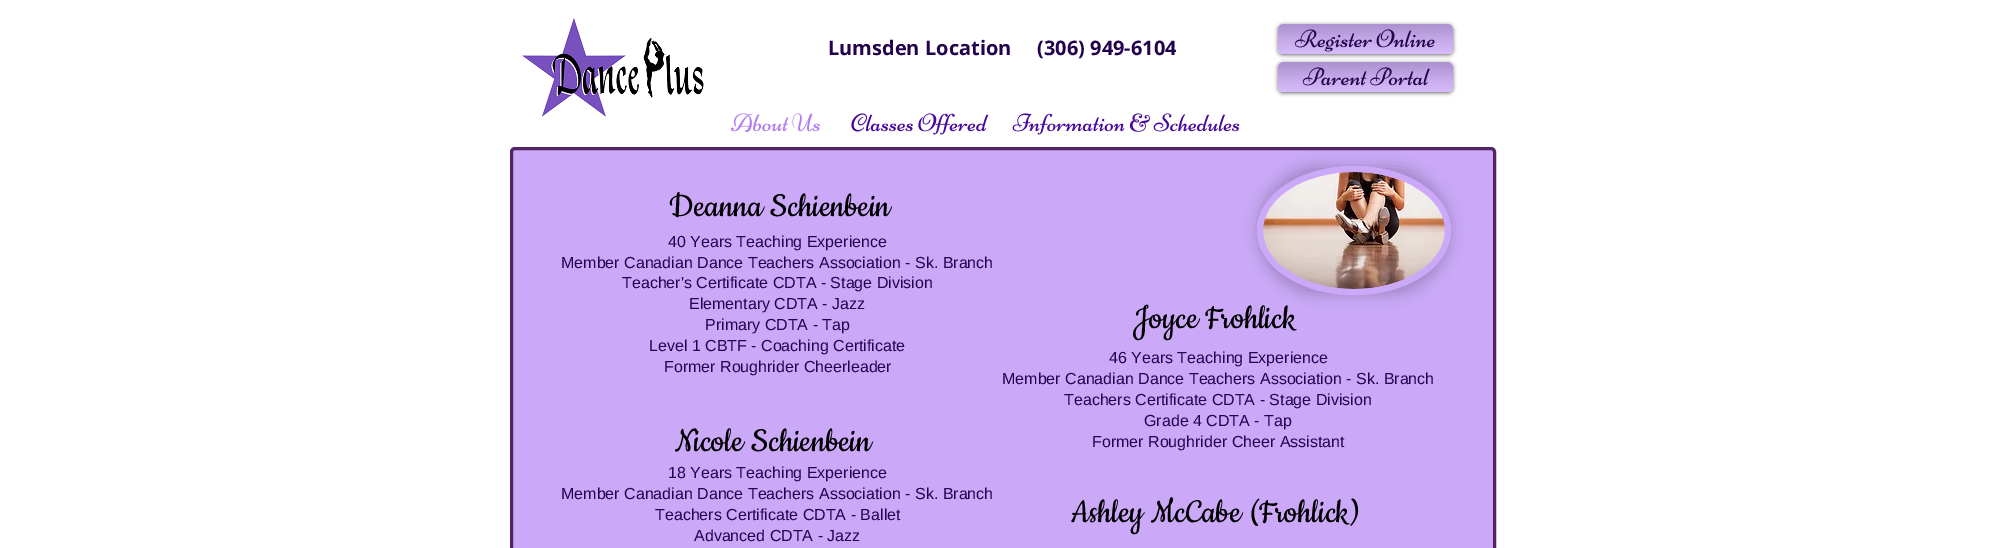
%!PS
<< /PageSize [2000 548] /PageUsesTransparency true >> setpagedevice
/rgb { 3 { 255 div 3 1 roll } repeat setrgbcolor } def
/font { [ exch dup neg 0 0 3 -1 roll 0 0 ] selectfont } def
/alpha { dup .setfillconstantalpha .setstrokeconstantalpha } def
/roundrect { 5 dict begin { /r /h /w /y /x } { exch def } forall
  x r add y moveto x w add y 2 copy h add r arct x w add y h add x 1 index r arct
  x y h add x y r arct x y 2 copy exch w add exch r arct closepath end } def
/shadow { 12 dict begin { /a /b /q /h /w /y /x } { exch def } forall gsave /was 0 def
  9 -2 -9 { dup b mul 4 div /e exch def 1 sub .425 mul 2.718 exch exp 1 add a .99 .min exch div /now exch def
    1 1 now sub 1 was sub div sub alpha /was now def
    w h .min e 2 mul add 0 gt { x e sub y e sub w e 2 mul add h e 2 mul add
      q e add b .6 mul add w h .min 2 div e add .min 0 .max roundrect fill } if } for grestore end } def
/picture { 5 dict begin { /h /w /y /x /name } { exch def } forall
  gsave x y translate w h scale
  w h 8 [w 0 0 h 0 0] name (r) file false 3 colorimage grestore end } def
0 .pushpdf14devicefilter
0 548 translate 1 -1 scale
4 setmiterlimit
255 255 255 rgb
0 0 2000 548 rectfill
(img/1.rgb) 522 18 182 99 picture
0 0 0 rgb
1278 25 175 30 5 2 0.6 shadow
203 169 248 rgb
1278 24 175 30 5 roundrect fill
(img/2.rgb) 1278 24 175 26 picture
(img/3.rgb) 1278 24 175 30 picture
(img/4.rgb) 1295 29 140 23 picture
0 0 0 rgb
1278 63 175 30 5 2 0.6 shadow
203 169 248 rgb
1278 62 175 30 5 roundrect fill
(img/2.rgb) 1278 62 175 26 picture
(img/3.rgb) 1278 62 175 30 picture
(img/5.rgb) 1302 67 128 19 picture
(img/6.rgb) 730 113 90 19 picture
(img/7.rgb) 851 113 138 22 picture
(img/8.rgb) 1012 113 228 22 picture
511.5 148.5 983 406 3.5 roundrect gsave fill grestore
83 37 99 rgb
3 setlinewidth
stroke
0 0 0 rgb
1257 166 194 129 64.5 7 0.2 shadow
203 169 248 rgb
1354 166 moveto 1407.5 166 1451 195 1451 230.5 curveto 1451 266 1407.5 295 1354 295 curveto 1300.5 295 1257 266 1257 230.5 curveto 1257 195 1300.5 166 1354 166 curveto closepath fill
6 setlinewidth
1354 169 moveto 1406 169 1448 196.5 1448 230.5 curveto 1448 264.5 1406 292 1354 292 curveto 1302 292 1260 264.5 1260 230.5 curveto 1260 196.5 1302 169 1354 169 curveto closepath stroke
(img/9.rgb) 1263 172 182 117 picture
/OpenSans-Bold 20 font
36 3 78 rgb
828 55 moveto (Lumsden Location     \(306\) 949-6104) show
/Cookie-Regular 38 font
0 0 0 rgb
669 216 moveto (Deanna Schienbein) show
/LiberationSans-Regular 16 font
36 3 78 rgb
[
  [(40 Years Teaching Experience) 668 247]
  [(Member Canadian Dance Teachers Association - Sk. Branch) 561 268]
  [(Teacher's Certificate CDTA - Stage Division) 622 288]
  [(Elementary CDTA - Jazz) 689 309]
  [(Primary CDTA - Tap) 705 330]
  [(Level 1 CBTF - Coaching Certificate) 649 351]
  [(Former Roughrider Cheerleader) 664 372]
] { aload pop moveto show } forall
/Cookie-Regular 38 font
0 0 0 rgb
1133 328 moveto (Joyce Frohlick) show
/LiberationSans-Regular 16 font
36 3 78 rgb
[
  [(46 Years Teaching Experience) 1109 363]
  [(Member Canadian Dance Teachers Association - Sk. Branch) 1002 384]
  [(Teachers Certificate CDTA - Stage Division) 1064 405]
  [(Grade 4 CDTA - Tap) 1144 426]
  [(Former Roughrider Cheer Assistant) 1092 447]
] { aload pop moveto show } forall
/Cookie-Regular 38 font
0 0 0 rgb
675 451 moveto (Nicole Schienbein) show
/LiberationSans-Regular 16 font
36 3 78 rgb
[
  [(18 Years Teaching Experience) 668 478]
  [(Member Canadian Dance Teachers Association - Sk. Branch) 561 499]
  [(Teachers Certificate CDTA - Ballet) 655 520]
  [(Advanced CDTA - Jazz) 694 541]
] { aload pop moveto show } forall
/Cookie-Regular 38 font
0 0 0 rgb
1071 522 moveto (Ashley McCabe \(Frohlick\)) show
.poppdf14devicefilter showpage
